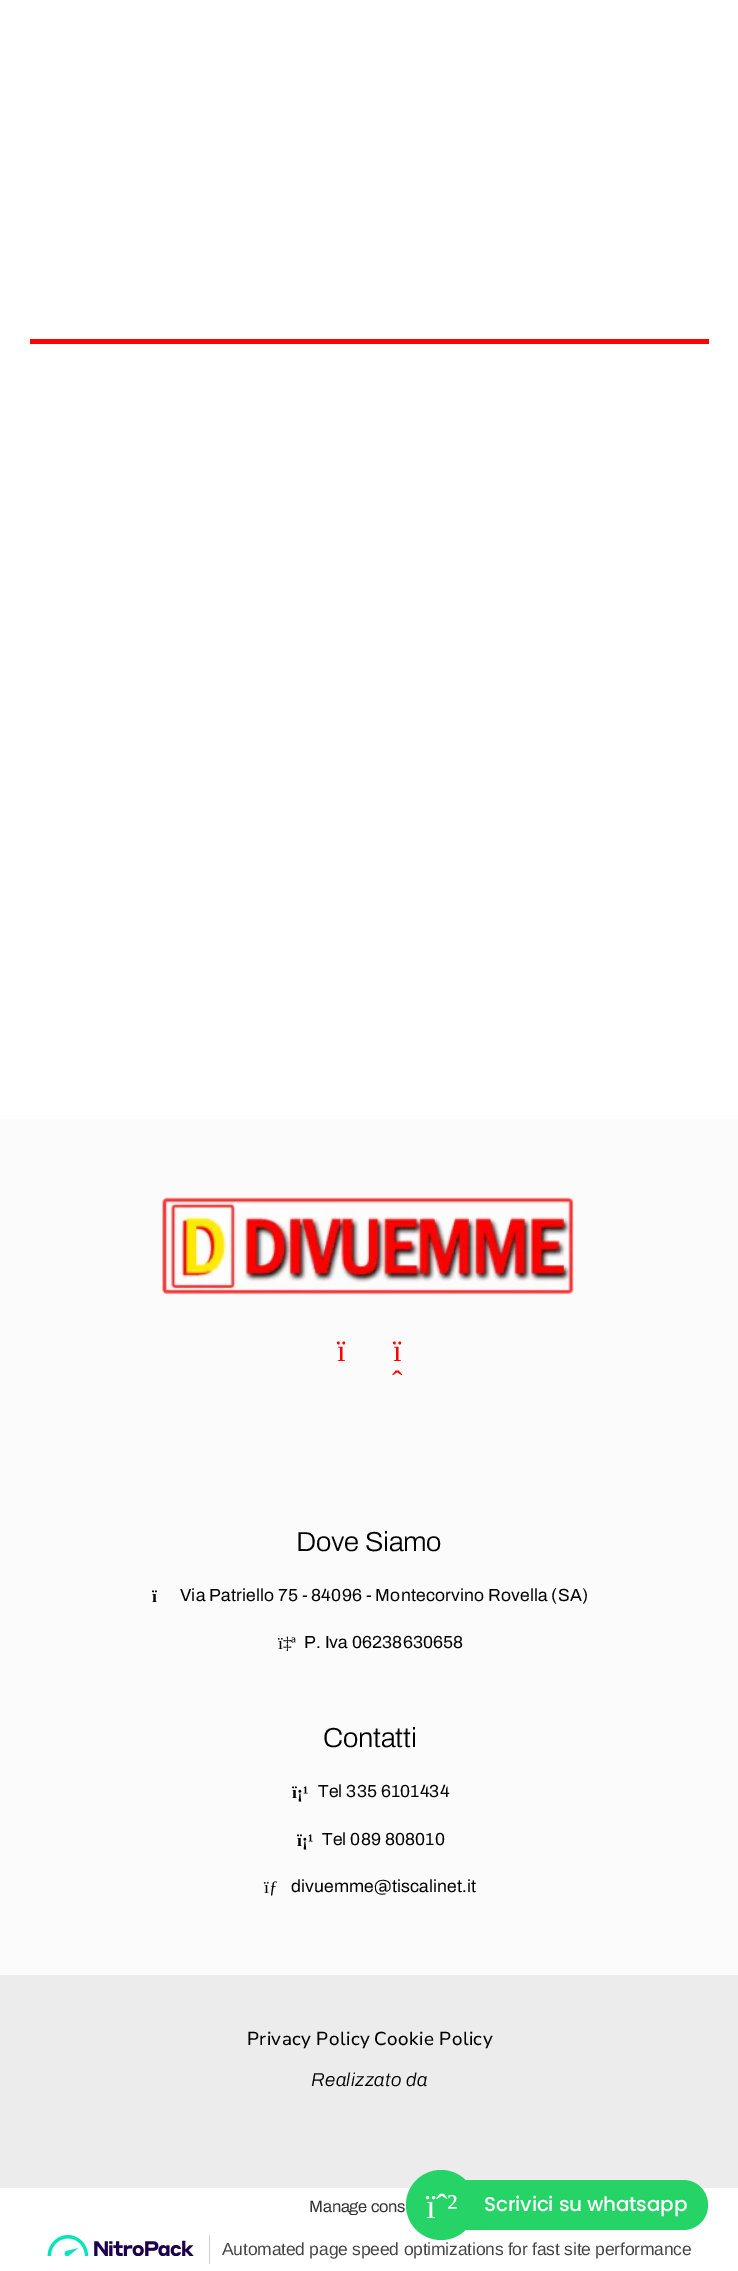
%!PS
<< /PageSize [738 2271] /PageUsesTransparency true >> setpagedevice
/rgb { 3 { 255 div 3 1 roll } repeat setrgbcolor } def
/font { [ exch dup neg 0 0 3 -1 roll 0 0 ] selectfont } def
/alpha { dup .setfillconstantalpha .setstrokeconstantalpha } def
/circle { newpath 0 360 arc closepath } def
/roundrect { 5 dict begin { /r /h /w /y /x } { exch def } forall
  x r add y moveto x w add y 2 copy h add r arct x w add y h add x 1 index r arct
  x y h add x y r arct x y 2 copy exch w add exch r arct closepath end } def
/shadow { 12 dict begin { /a /b /q /h /w /y /x } { exch def } forall gsave /was 0 def
  9 -2 -9 { dup b mul 4 div /e exch def 1 sub .425 mul 2.718 exch exp 1 add a .99 .min exch div /now exch def
    1 1 now sub 1 was sub div sub alpha /was now def
    w h .min e 2 mul add 0 gt { x e sub y e sub w e 2 mul add h e 2 mul add
      q e add b .6 mul add w h .min 2 div e add .min 0 .max roundrect fill } if } for grestore end } def
/picture { 5 dict begin { /h /w /y /x /name } { exch def } forall
  gsave x y translate w h scale
  w h 8 [w 0 0 h 0 0] name (r) file false 3 colorimage grestore end } def
0 .pushpdf14devicefilter
0 2271 translate 1 -1 scale
4 setmiterlimit
255 255 255 rgb
0 0 738 2271 rectfill
253 3 0 rgb
30 339 679 5 rectfill
251 251 251 rgb
0 1119 738 856 rectfill
(img/1.rgb) 162 1197 412 98 picture
gsave
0 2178 moveto 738 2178 lineto 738 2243 lineto 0 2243 lineto closepath 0 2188 moveto 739 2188 lineto 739 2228 lineto 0 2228 lineto closepath eoclip newpath
22 22 22 rgb
0 2188 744 45 0 3 1 shadow
grestore
236 236 236 rgb
0 1975 738 213 rectfill
255 255 255 rgb
0 2228 738 12 rectfill
37 211 102 rgb
464 2180 moveto 683 2180 lineto 697 2180 708 2191 708 2205 curveto 708 2219 697 2230 683 2230 curveto 464 2230 lineto closepath fill
209 209 209 rgb
209 2235 1 29 rectfill
(img/2.rgb) 47 2235 147 21 picture
/LiberationSerif-Regular 31 font
253 3 0 rgb
337 1361 moveto -0.2 0 (ï) ashow
393 1361 moveto -0.2 0 (ï) ashow
392 1392 moveto -0.2 0 (ˆ) ashow
/Archivo-Light 27.5 font
0 0 0 rgb
296 1551 moveto -0.25 0 (Dove Siamo) ashow
/LiberationSerif-Bold 17.5 font
152 1602 moveto 0.15 0 (ï) ashow
/Archivo-Regular 17.5 font
180 1601 moveto 0.15 0 (Via Patriello 75 - 84096 - Montecorvino Rovella \(SA\)) ashow
/LiberationSerif-Regular 17.5 font
278 1649 moveto -0.2 0 (ï‡ª) ashow
/Archivo-Regular 17.5 font
304 1648 moveto 0.15 0 (P. Iva 06238630658) ashow
/Archivo-Light 27.5 font
323 1747 moveto -0.25 0 (Contatti) ashow
/LiberationSerif-Bold 17.5 font
292 1798 moveto 0.15 0 (ï¡¹) ashow
/Archivo-Regular 17.5 font
318 1797 moveto 0.15 0 (Tel 335 6101434) ashow
/LiberationSerif-Bold 17.5 font
297 1846 moveto 0.15 0 (ï¡¹) ashow
/Archivo-Regular 17.5 font
322 1845 moveto 0.15 0 (Tel 089 808010) ashow
/LiberationSerif-Regular 17.5 font
264 1893 moveto 0.15 0 (ïƒ) ashow
/Archivo-Regular 17.5 font
291 1892 moveto 0.15 0 (divuemme@tiscalinet.it) ashow
/NunitoSans-Medium 18.75 font
247 2045 moveto 0.4 0 (Privacy Policy) ashow
374 2045 moveto 0.4 0 (Cookie Policy) ashow
/Archivo-LightItalic 18.75 font
311 2086 moveto 0.4 0 (Realizzato da) ashow
/Archivo-Regular 16.5 font
51 51 51 rgb
309 2212 moveto -0.2 0 (Manage cons) ashow
37 211 102 rgb
441 2205 35 circle fill
/LiberationSerif-Regular 35 font
255 255 255 rgb
426 2218 moveto -0.2 0 (ïˆ²) ashow
/Poppins-Medium 20 font
484 2211 moveto -0.2 0 (Scrivici su whatsapp) ashow
/LiberationSans-Regular 17.5 font
69 69 69 rgb
222 2255 moveto -0.2 0 (Automated page speed optimizations for fast site performance) ashow
.poppdf14devicefilter showpage
